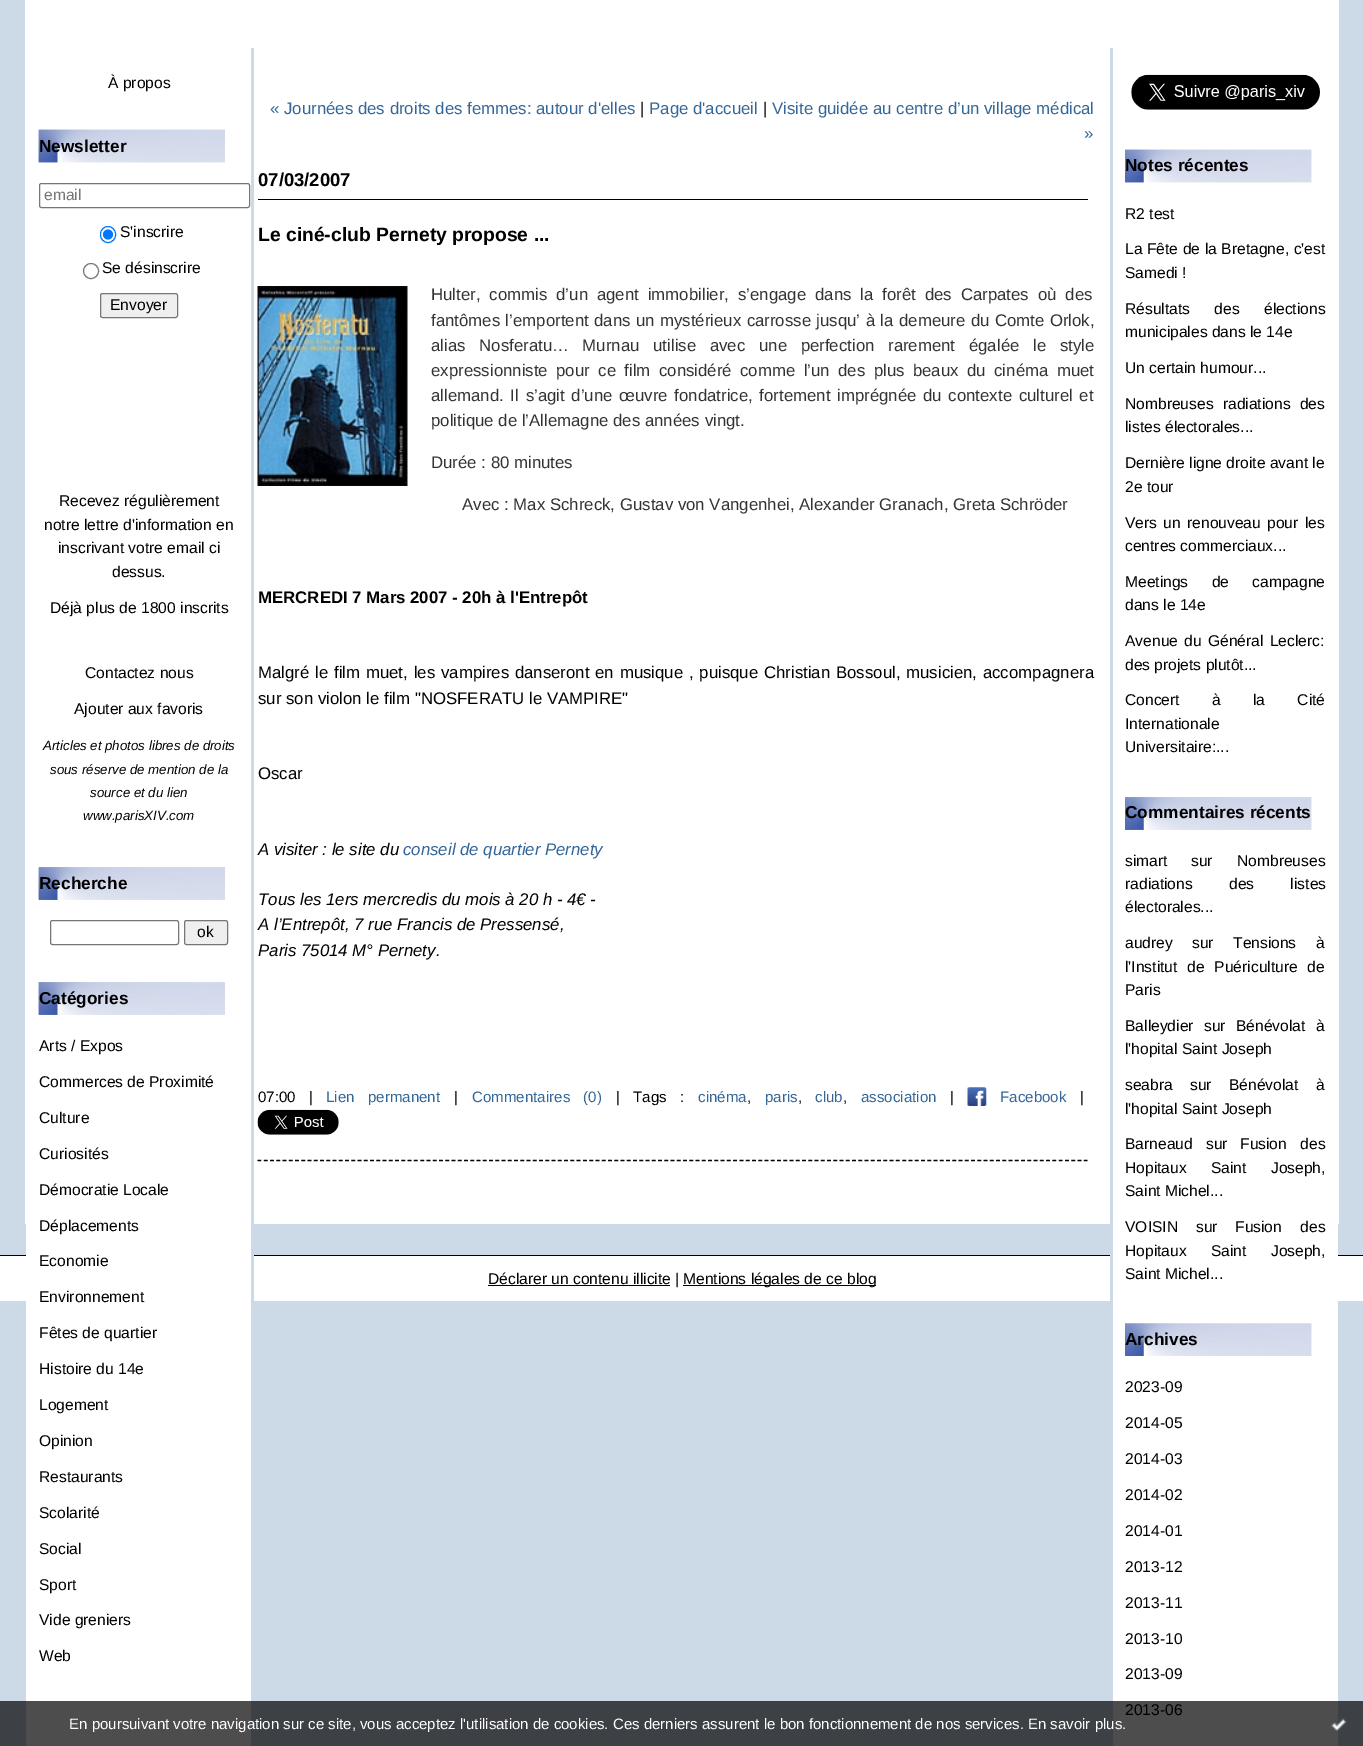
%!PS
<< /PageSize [1363 1746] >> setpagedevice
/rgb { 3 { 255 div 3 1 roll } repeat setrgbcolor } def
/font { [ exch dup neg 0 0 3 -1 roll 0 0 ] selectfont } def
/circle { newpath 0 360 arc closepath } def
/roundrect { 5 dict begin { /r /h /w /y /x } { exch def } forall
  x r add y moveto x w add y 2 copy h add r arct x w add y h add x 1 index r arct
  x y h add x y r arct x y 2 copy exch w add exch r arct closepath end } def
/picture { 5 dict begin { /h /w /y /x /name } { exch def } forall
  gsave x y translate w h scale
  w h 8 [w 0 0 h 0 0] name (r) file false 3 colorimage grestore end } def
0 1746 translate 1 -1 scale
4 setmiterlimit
204 217 230 rgb
0 0 1363 1746 rectfill
[
  [0 1701 1363 45 61 65 69]
  [25 0 1314 1224 255 255 255]
  [0 1256 1363 45 255 255 255]
  [0 1255 1363 1 0 0 0]
  [26 1224 225 477 255 255 255]
  [26 1701 225 45 77 77 77]
  [251 48 3 1253 204 217 230]
] { aload pop rgb rectfill } forall
(img/1.rgb) 38 129 187 34 picture
(img/2.rgb) 38 129 187 34 picture
118 118 118 rgb
39.5 183.5 210 24 2 roundrect stroke
0 117 255 rgb
100.5 226.5 15 16 7.5 roundrect stroke
108 234.5 5 circle fill
118 118 118 rgb
91 271 7.5 circle stroke
239 239 239 rgb
100.5 293.5 77 24 2 roundrect gsave fill grestore
118 118 118 rgb
stroke
(img/3.rgb) 38 867 187 33 picture
(img/4.rgb) 38 867 187 33 picture
50.5 920.5 128 24 2 roundrect stroke
239 239 239 rgb
184.5 920.5 43 24 2 roundrect gsave fill grestore
118 118 118 rgb
stroke
(img/5.rgb) 38 982 187 33 picture
(img/6.rgb) 38 982 187 33 picture
0 0 0 rgb
258 199 830 1 rectfill
(img/7.rgb) 257 286 151 200 picture
1.2 setlinewidth
[3.75 2.51] 0 setdash
257.5 1160.5 moveto 1087.5 1160.5 lineto stroke
(img/8.rgb) 967 1087 20 19 picture
(img/9.rgb) 257 1109 82 26 picture
[
  [1113 1224 225 477 255 255 255]
  [1113 1701 225 45 77 77 77]
  [1110 48 3 1253 204 217 230]
] { aload pop rgb rectfill } forall
(img/10.rgb) 1131 74 189 36 picture
(img/11.rgb) 1125 149 187 34 picture
(img/12.rgb) 1125 149 187 34 picture
(img/13.rgb) 1125 797 187 33 picture
(img/14.rgb) 1125 797 187 33 picture
(img/15.rgb) 1125 1323 187 33 picture
(img/16.rgb) 1125 1323 187 33 picture
0 0 0 rgb
488 1285 182 1 rectfill
683 1285 193 1 rectfill
(img/17.rgb) 1331 1718 16 13 picture
/LiberationSans-Regular 15.6 font
108 88 moveto (À propos) show
/LiberationSans-Bold 17.25 font
39 152 moveto (Newsletter) show
/LiberationSans-Regular 15.6 font
117 117 117 rgb
44 200 moveto (email) show
0 0 0 rgb
[
  [(S'inscrire) 120 237]
  [(Se désinscrire) 102 273]
  [(Envoyer) 110 310]
  [(Recevez régulièrement) 59 506]
  [(notre lettre d'information en) 44 530]
  [(inscrivant votre email ci) 58 553]
  [(dessus.) 112 577]
  [(Déjà plus de 1800 inscrits) 50 613]
  [(Contactez nous) 85 678]
  [(Ajouter aux favoris) 74 714]
] { aload pop moveto show } forall
/LiberationSans-Italic 13.3 font
[
  [(Articles et photos libres de droits) 43 750]
  [(sous réserve de mention de la) 50 774]
  [(source et du lien) 90 797]
  [(www.parisXIV.com) 83 820]
] { aload pop moveto show } forall
/LiberationSans-Bold 17.25 font
39 889 moveto (Recherche) show
/LiberationSans-Regular 15.6 font
197 937 moveto (ok) show
/LiberationSans-Bold 17.25 font
39 1004 moveto (Catégories) show
/LiberationSans-Regular 15.6 font
[
  [(Arts / Expos) 39 1051]
  [(Commerces de Proximité) 39 1087]
  [(Culture) 39 1123]
  [(Curiosités) 39 1159]
  [(Démocratie Locale) 39 1195]
  [(Déplacements) 39 1231]
  [(Economie) 39 1266]
  [(Environnement) 39 1302]
  [(Fêtes de quartier) 39 1338]
  [(Histoire du 14e) 39 1374]
  [(Logement) 39 1410]
  [(Opinion) 39 1446]
  [(Restaurants) 39 1482]
  [(Scolarité) 39 1518]
  [(Social) 39 1554]
  [(Sport) 39 1590]
  [(Vide greniers) 39 1625]
  [(Web) 39 1661]
] { aload pop moveto show } forall
/LiberationSans-Regular 16.8 font
51 102 153 rgb
270 114 moveto (« Journées des droits des femmes: autour d'elles) show
0 0 0 rgb
640 114 moveto (|) show
51 102 153 rgb
649 114 moveto (Page d'accueil) show
0 0 0 rgb
763 114 moveto (|) show
51 102 153 rgb
772 114 moveto (Visite guidée au centre d’un village médical) show
1084 139 moveto (») show
/LiberationSans-Bold 18.5 font
0 0 0 rgb
258 186 moveto (07/03/2007) show
/LiberationSans-Bold 19.3 font
258 241 moveto (Le ciné-club Pernety propose ...) show
/LiberationSans-Regular 16.8 font
51 51 51 rgb
431 300 moveto 4.25 0 32 (Hulter, commis d’un agent immobilier, s’engage dans la forêt des Carpates où des) widthshow
431 326 moveto 0.75 0 32 (fantômes l’emportent dans un mystérieux carrosse jusqu’ à la demeure du Comte Orlok,) widthshow
431 351 moveto 9 0 32 (alias Nosferatu… Murnau utilise avec une perfection rarement égalée le style) widthshow
431 376 moveto 3.75 0 32 (expressionniste pour ce film considéré comme l’un des plus beaux du cinéma muet) widthshow
431 401 moveto 2 0 32 (allemand. Il s’agit d’une œuvre fondatrice, fortement imprégnée du contexte culturel et) widthshow
[
  [(politique de l’Allemagne des années vingt.) 431 426]
  [(Durée : 80 minutes) 431 468]
  [(Avec : Max Schreck, Gustav von Vangenhei, Alexander Granach, Greta Schröder) 462 510]
] { aload pop moveto show } forall
/LiberationSans-Bold 16.8 font
0 0 0 rgb
258 603 moveto (MERCREDI 7 Mars 2007 - 20h à l'Entrepôt) show
/LiberationSans-Regular 16.8 font
258 678 moveto 1.1 0 32 (Malgré le film muet, les vampires danseront en musique , puisque Christian Bossoul, musicien, accompagnera) widthshow
258 704 moveto (sur son violon le film "NOSFERATU le VAMPIRE") show
258 779 moveto (Oscar) show
/LiberationSans-Italic 16.8 font
258 855 moveto (A visiter : le site du) show
51 102 153 rgb
403 855 moveto (conseil de quartier Pernety) show
0 0 0 rgb
[
  [(Tous les 1ers mercredis du mois à 20 h - 4€ -) 258 905]
  [(A l’Entrepôt, 7 rue Francis de Pressensé,) 258 930]
  [(Paris 75014 M° Pernety.) 258 956]
] { aload pop moveto show } forall
/LiberationSans-Regular 15.1 font
258 1102 moveto (07:00) show
309 1102 moveto (|) show
51 102 153 rgb
326 1102 moveto 9 0 32 (Lien permanent) widthshow
0 0 0 rgb
454 1102 moveto (|) show
51 102 153 rgb
472 1102 moveto 9 0 32 (Commentaires \(0\)) widthshow
0 0 0 rgb
616 1102 moveto 9 0 32 (| Tags :) widthshow
51 102 153 rgb
698 1102 moveto (cinéma) show
0 0 0 rgb
747 1102 moveto (,) show
51 102 153 rgb
765 1102 moveto (paris) show
0 0 0 rgb
798 1102 moveto (,) show
51 102 153 rgb
815 1102 moveto (club) show
0 0 0 rgb
843 1102 moveto (,) show
51 102 153 rgb
861 1102 moveto (association) show
0 0 0 rgb
950 1102 moveto (|) show
51 102 153 rgb
1000 1102 moveto (Facebook) show
0 0 0 rgb
1080 1102 moveto (|) show
/LiberationSans-Bold 17.25 font
1125 171 moveto (Notes récentes) show
/LiberationSans-Regular 15.6 font
1125 219 moveto (R2 test) show
1125 254 moveto 0.25 0 32 (La Fête de la Bretagne, c'est) widthshow
1125 278 moveto (Samedi !) show
1125 314 moveto 20 0 32 (Résultats des élections) widthshow
1125 337 moveto (municipales dans le 14e) show
1125 373 moveto (Un certain humour...) show
1125 409 moveto 5 0 32 (Nombreuses radiations des) widthshow
[
  [(listes électorales...) 1125 432]
  [(Dernière ligne droite avant le) 1125 468]
  [(2e tour) 1125 492]
] { aload pop moveto show } forall
1125 528 moveto 2 0 32 (Vers un renouveau pour les) widthshow
1125 551 moveto (centres commerciaux...) show
1125 587 moveto 19 0 32 (Meetings de campagne) widthshow
1125 610 moveto (dans le 14e) show
1125 646 moveto 2 0 32 (Avenue du Général Leclerc:) widthshow
1125 670 moveto (des projets plutôt...) show
1125 705 moveto 28 0 32 (Concert à la Cité) widthshow
1125 729 moveto (Internationale) show
1125 752 moveto (Universitaire:...) show
/LiberationSans-Bold 17.25 font
1125 818 moveto (Commentaires récents) show
/LiberationSans-Regular 15.6 font
[
  [(simart) 1125 866]
  [(sur) 1191 866]
  [(Nombreuses) 1237 866]
] { aload pop moveto show } forall
1125 889 moveto 32 0 32 (radiations des listes) widthshow
[
  [(électorales...) 1125 912]
  [(audrey) 1125 948]
  [(sur) 1192 948]
] { aload pop moveto show } forall
1233 948 moveto 15 0 32 (Tensions à) widthshow
1125 972 moveto 5.5 0 32 (l'Institut de Puériculture de) widthshow
[
  [(Paris) 1125 995]
  [(Balleydier) 1125 1031]
  [(sur) 1204 1031]
] { aload pop moveto show } forall
1236 1031 moveto 6 0 32 (Bénévolat à) widthshow
[
  [(l'hopital Saint Joseph) 1125 1054]
  [(seabra) 1125 1090]
  [(sur) 1190 1090]
] { aload pop moveto show } forall
1229 1090 moveto 13 0 32 (Bénévolat à) widthshow
[
  [(l'hopital Saint Joseph) 1125 1114]
  [(Barneaud) 1125 1149]
  [(sur) 1206 1149]
] { aload pop moveto show } forall
1240 1149 moveto 9 0 32 (Fusion des) widthshow
1125 1173 moveto 20 0 32 (Hopitaux Saint Joseph,) widthshow
[
  [(Saint Michel...) 1125 1196]
  [(VOISIN) 1125 1232]
  [(sur) 1196 1232]
] { aload pop moveto show } forall
1235 1232 moveto 14 0 32 (Fusion des) widthshow
1125 1256 moveto 20 0 32 (Hopitaux Saint Joseph,) widthshow
1125 1279 moveto (Saint Michel...) show
/LiberationSans-Bold 17.25 font
1125 1345 moveto (Archives) show
/LiberationSans-Regular 15.6 font
[
  [(2023-09) 1125 1392]
  [(2014-05) 1125 1428]
  [(2014-03) 1125 1464]
  [(2014-02) 1125 1500]
  [(2014-01) 1125 1536]
  [(2013-12) 1125 1572]
  [(2013-11) 1125 1608]
  [(2013-10) 1125 1644]
  [(2013-09) 1125 1679]
  [(2013-06) 1125 1715]
  [(Déclarer un contenu illicite |) 488 1284]
  [(Mentions légales de ce blog) 683 1284]
] { aload pop moveto show } forall
/LiberationSans-Regular 15 font
255 255 255 rgb
69 1729 moveto (En poursuivant votre navigation sur ce site, vous acceptez l'utilisation de cookies. Ces derniers assurent le bon fonctionnement de nos services. En savoir plus.) show
showpage
